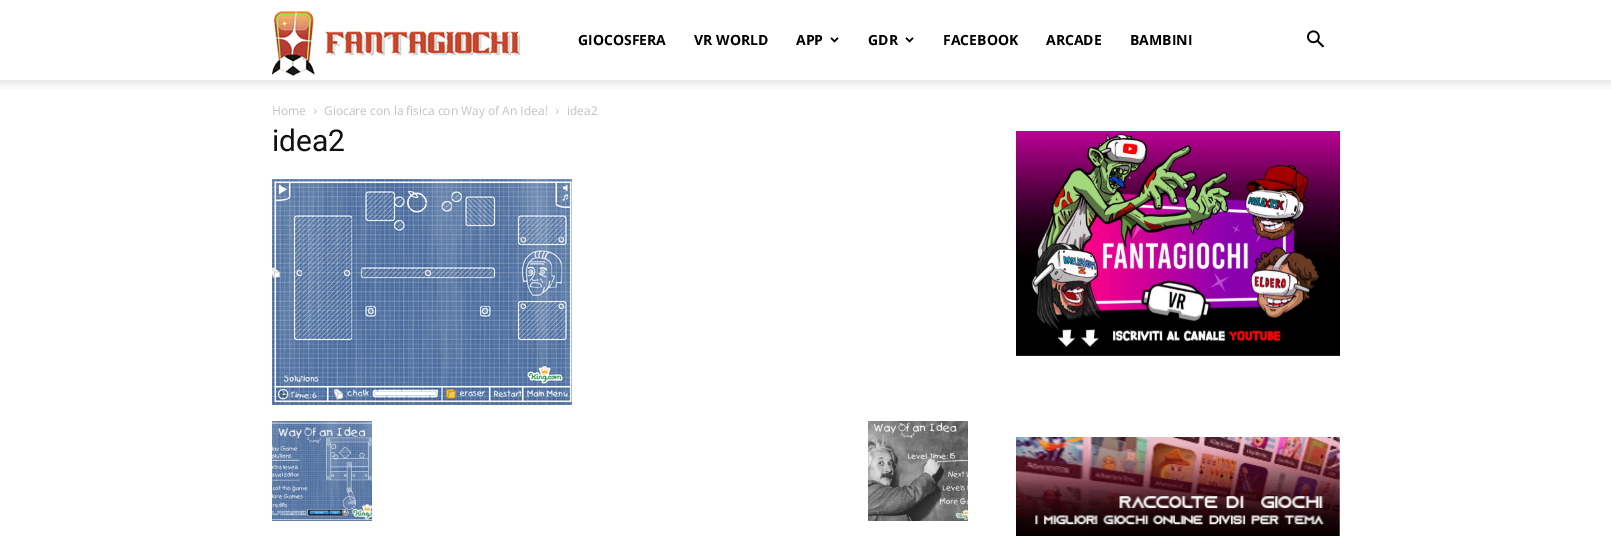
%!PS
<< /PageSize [1611 536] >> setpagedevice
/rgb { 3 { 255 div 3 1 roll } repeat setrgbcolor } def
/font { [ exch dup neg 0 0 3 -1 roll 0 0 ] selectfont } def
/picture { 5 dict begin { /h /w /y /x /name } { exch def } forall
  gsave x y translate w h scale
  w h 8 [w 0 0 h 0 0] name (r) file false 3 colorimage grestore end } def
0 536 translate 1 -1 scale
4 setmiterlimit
255 255 255 rgb
0 0 1611 536 rectfill
(img/1.rgb) 272 11 249 65 picture
(img/2.rgb) 830 37 9 6 picture
(img/2.rgb) 905 37 9 6 picture
(img/3.rgb) 1307 30 17 18 picture
(img/4.rgb) 0 80 1611 9 picture
(img/5.rgb) 314 109 3 5 picture
(img/5.rgb) 556 109 3 5 picture
(img/6.rgb) 272 179 300 226 picture
(img/7.rgb) 272 421 100 100 picture
(img/8.rgb) 868 421 100 100 picture
(img/9.rgb) 1016 131 324 225 picture
(img/10.rgb) 1016 437 324 99 picture
/OpenSans-Bold 14 font
0 0 0 rgb
[
  [(GIOCOSFERA) 578 45]
  [(VR WORLD) 694 45]
  [(APP) 796 45]
  [(GDR) 868 45]
  [(FACEBOOK) 943 45]
  [(ARCADE) 1046 45]
  [(BAMBINI) 1130 45]
] { aload pop moveto show } forall
/OpenSans-Regular 12 font
195 195 195 rgb
[
  [(Home) 272 115]
  [(Giocare con la fisica con Way of An Idea!) 324 115]
  [(idea2) 567 115]
] { aload pop moveto show } forall
/Roboto-Regular 30 font
17 17 17 rgb
272 151 moveto (idea2) show
showpage
